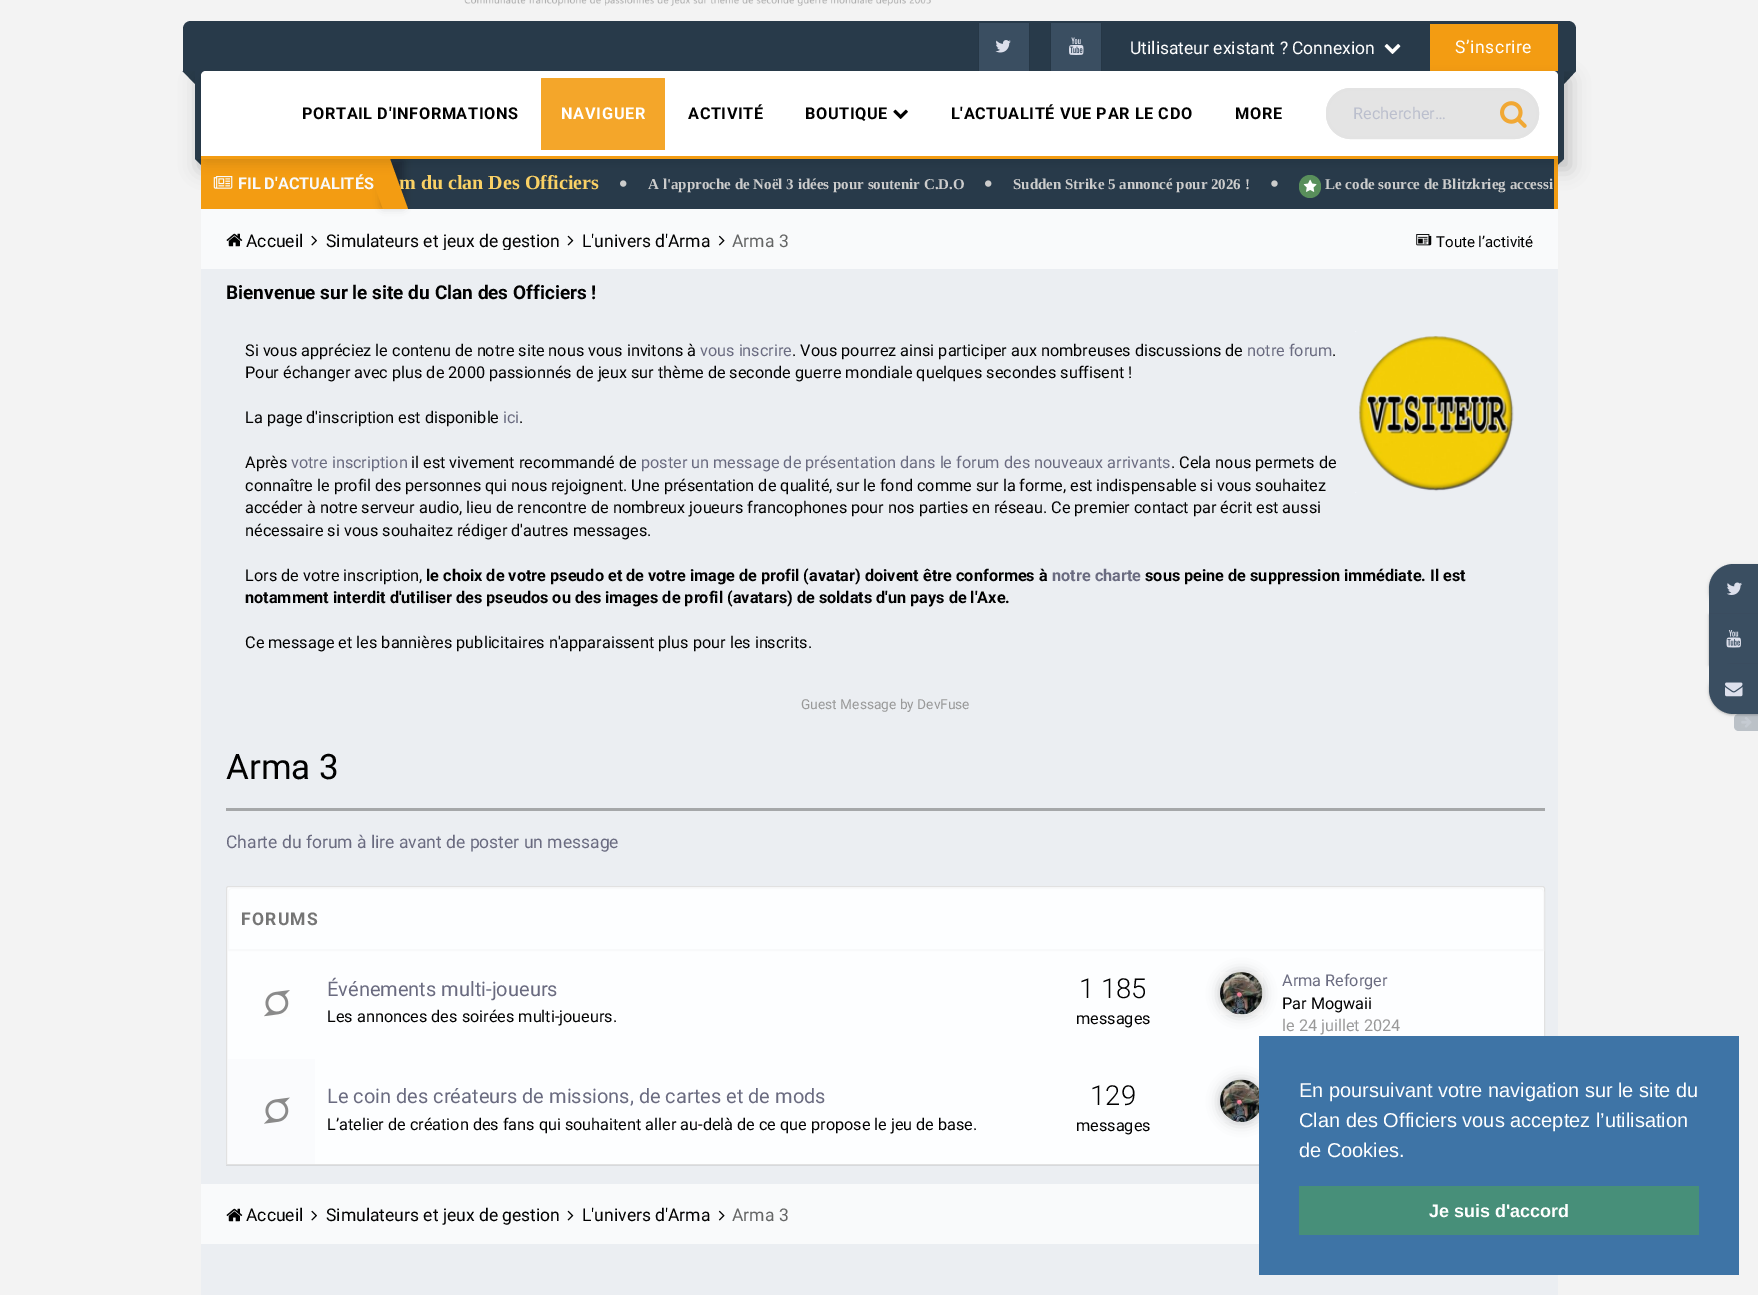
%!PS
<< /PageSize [1758 1295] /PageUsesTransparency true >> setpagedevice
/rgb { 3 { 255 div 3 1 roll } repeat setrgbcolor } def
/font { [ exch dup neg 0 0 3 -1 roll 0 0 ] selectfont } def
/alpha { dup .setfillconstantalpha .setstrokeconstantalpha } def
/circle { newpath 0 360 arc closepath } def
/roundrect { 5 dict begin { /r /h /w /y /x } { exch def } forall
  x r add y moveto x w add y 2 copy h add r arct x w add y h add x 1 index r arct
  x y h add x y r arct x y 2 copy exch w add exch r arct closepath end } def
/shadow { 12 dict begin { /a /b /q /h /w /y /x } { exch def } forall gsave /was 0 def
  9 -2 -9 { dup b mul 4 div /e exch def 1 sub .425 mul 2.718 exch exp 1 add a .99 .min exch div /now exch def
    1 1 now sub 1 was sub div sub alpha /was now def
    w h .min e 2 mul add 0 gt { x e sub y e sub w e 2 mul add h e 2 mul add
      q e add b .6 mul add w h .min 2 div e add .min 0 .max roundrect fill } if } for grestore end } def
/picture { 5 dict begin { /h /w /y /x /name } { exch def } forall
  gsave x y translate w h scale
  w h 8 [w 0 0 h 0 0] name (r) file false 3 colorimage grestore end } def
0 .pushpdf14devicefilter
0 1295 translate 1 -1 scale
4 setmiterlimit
243 243 243 rgb
0 0 1758 1295 rectfill
(img/1.rgb) 464 0 467 6 picture
40 58 74 rgb
182.5 71 moveto 195 71 lineto 195 84 lineto closepath fill
1564 71 moveto 1576 71 lineto 1564 84 lineto closepath fill
195 159 moveto 201 159 lineto 201 165 lineto closepath fill
0 0 0 rgb
199 79 1371 90 0 9.5 0.2 shadow
40 58 74 rgb
191 21 moveto 1568 21 lineto 1572.5 21 1576 24.5 1576 29 curveto 1576 71 lineto 183 71 lineto 183 29 lineto 183 24.5 186.5 21 191 21 curveto closepath fill
195 71 1369 88 rectfill
0 0 0 rgb
979 24 50 50 0 1 0.18 shadow
58 78 97 rgb
979 23 50 48 rectfill
(img/2.rgb) 995 40 16 13 picture
0 0 0 rgb
1051 24 50 50 0 1 0.18 shadow
58 78 97 rgb
1051 23 50 48 rectfill
(img/3.rgb) 1069 37 15 18 picture
(img/4.rgb) 1384 44 17 10 picture
243 156 18 rgb
1430 24 128 47 rectfill
40 58 74 rgb
1557.5 159 moveto 1564 159 lineto 1557.5 165 lineto closepath fill
[
  [1554 159 4 50 243 156 18]
  [390 159 1164 50 40 58 74]
  [201 159 182 50 243 156 18]
] { aload pop rgb rectfill } forall
(img/7.rgb) 213 176 20 13 picture
249 250 251 rgb
201 209 1357 60 rectfill
0 0 0 rgb
383 161 20 45 0 4.5 0.3 shadow
(img/8.rgb) 620 180 7 7 picture
(img/8.rgb) 985 180 7 7 picture
(img/9.rgb) 1271 180 7 7 picture
89 143 91 rgb
1299 175 22 23 11 roundrect fill
(img/10.rgb) 1303 179 14 13 picture
235 238 242 rgb
201 269 1357 915 rectfill
(img/11.rgb) 226 233 17 14 picture
(img/12.rgb) 311 235 6 11 picture
(img/13.rgb) 567 235 7 11 picture
(img/14.rgb) 718 235 7 11 picture
(img/15.rgb) 1416 234 16 12 picture
(img/16.rgb) 1355 331 159 162 picture
165 167 169 rgb
226 808 1319 3 rectfill
212 214 218 rgb
226 889 moveto 226 1166 lineto 1545 1166 lineto 1545 1165 lineto 226 1165 lineto closepath fill
253 254 255 rgb
228.5 886.5 moveto 1542.5 886.5 lineto 1543.5 886.5 1544.5 887.5 1544.5 888.5 curveto 1544.5 1164.5 lineto 226.5 1164.5 lineto 226.5 888.5 lineto 226.5 887.5 227.5 886.5 228.5 886.5 curveto closepath gsave fill grestore
225 225 225 rgb
stroke
248 249 250 rgb
232 888.5 moveto 1540 888.5 lineto 1542 888.5 1543.5 890 1543.5 892 curveto 1543.5 950.5 lineto 228.5 950.5 lineto 228.5 892 lineto 228.5 890 230 888.5 232 888.5 curveto closepath stroke
228 949 1316 1 rectfill
(img/17.rgb) 264 990 26 27 picture
252 252 252 rgb
1241.5 993.5 22 circle stroke
0 0 0 rgb
1219 971 45 45 22.5 6 0.2 shadow
(img/18.rgb) 1220 972 43 43 picture
250 251 253 rgb
228 1059 87 105 rectfill
(img/19.rgb) 264 1097 26 27 picture
249 250 252 rgb
1241.5 1101.5 22 circle stroke
0 0 0 rgb
1219 1079 45 45 22.5 6 0.2 shadow
(img/20.rgb) 1220 1079 39 43 picture
249 250 251 rgb
201 1184 1058 60 rectfill
(img/11.rgb) 226 1208 17 14 picture
(img/12.rgb) 311 1210 6 11 picture
(img/13.rgb) 567 1210 7 11 picture
(img/14.rgb) 718 1210 7 11 picture
235 238 242 rgb
201 1244 1357 51 rectfill
0 0 0 rgb
1709 565 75 50 25 1 0.18 shadow
1709 565 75 50 25 2 0.1 shadow
58 78 97 rgb
1734 564 moveto 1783 564 lineto 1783 614 lineto 1709 614 lineto 1709 589 lineto 1709 575 1720 564 1734 564 curveto closepath fill
0.15 alpha
1734 564 moveto 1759 564 lineto 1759 614 lineto 1709 614 lineto 1709 589 lineto 1709 575 1720 564 1734 564 curveto closepath fill
1 alpha
(img/21.rgb) 1727 582 15 13 picture
0 0 0 rgb
1709 615 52 50 0 1 0.18 shadow
1709 615 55 50 0 2 0.1 shadow
58 78 97 rgb
1709 614 49 50 rectfill
(img/22.rgb) 1726 630 15 18 picture
0 0 0 rgb
1709 665 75 50 25 1 0.18 shadow
1709 665 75 50 25 2 0.1 shadow
58 78 97 rgb
1709 664 moveto 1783 664 lineto 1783 714 lineto 1734 714 lineto 1720 714 1709 703 1709 689 curveto closepath fill
0.15 alpha
1709 664 moveto 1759 664 lineto 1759 714 lineto 1734 714 lineto 1720 714 1709 703 1709 689 curveto closepath fill
1 alpha
(img/23.rgb) 1725 682 18 15 picture
0.3 alpha
1739 714 moveto 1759 714 lineto 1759 731 lineto 1739 731 lineto 1736 731 1734 729 1734 726 curveto 1734 719 lineto 1734 716 1736 714 1739 714 curveto closepath fill
1 alpha
(img/24.rgb) 1741 717 11 11 picture
62 116 166 rgb
1259 1036 480 239 rectfill
71 143 121 rgb
1299 1186 400 49 rectfill
/Roboto-Regular 17.5 font
255 255 255 rgb
1130 54 moveto (Utilisateur existant ? Connexion) show
1455 53 moveto 0.6 0 (S’inscrire) ashow
/LiberationSerif-Bold 20 font
250 209 101 rgb
399 189 moveto (m du clan Des Officiers) show
243 156 18 rgb
365 159 moveto 390 159 lineto 408 209 lineto 383 209 lineto closepath fill
0 0 0 rgb
201 76 1357 88 5 5 0.1 shadow
255 255 255 rgb
206 71 moveto 1553 71 lineto 1556 71 1558 73 1558 76 curveto 1558 159 lineto 201 159 lineto 201 76 lineto 201 73 203 71 206 71 curveto closepath fill
228 228 228 rgb
1326 88 213 51 25 roundrect fill
0.9 alpha
227 227 227 rgb
3 setlinewidth
1327.5 89.5 210 48 23.5 roundrect stroke
/Roboto-Regular 16.25 font
1 alpha
187 191 205 rgb
1353 119 moveto (Rechercher…) show
(img/6.rgb) 1500 101 27 27 picture
/Roboto-Bold 16.25 font
1 1 1 rgb
1235 119 moveto 0.6 0 (MORE) ashow
951 119 moveto 0.6 0 (L'ACTUALITÉ VUE PAR LE CDO) ashow
(img/5.rgb) 893 109 15 10 picture
805 119 moveto 0.6 0 (BOUTIQUE) ashow
688 119 moveto 0.6 0 (ACTIVITÉ) ashow
244 166 42 rgb
542 78 moveto 664 78 lineto 664.5 78 665 78.5 665 79 curveto 665 150 lineto 541 150 lineto 541 79 lineto 541 78.5 541.5 78 542 78 curveto closepath fill
255 255 255 rgb
561 119 moveto 0.75 0 (NAVIGUER) ashow
1 1 1 rgb
302 119 moveto 0.6 0 (PORTAIL D'INFORMATIONS) ashow
243 156 18 rgb
201 156 1357 3 rectfill
248 249 250 rgb
238 189 moveto (FIL D'ACTUALITÉS) show
/LiberationSerif-Bold 15 font
204 204 204 rgb
[
  [(A l'approche de Noël 3 idées pour soutenir C.D.O) 648 189]
  [(Sudden Strike 5 annoncé pour 2026 !) 1013 189]
  [(Le code source de Blitzkrieg accessi) 1325 189]
] { aload pop moveto show } forall
/Roboto-Regular 17.5 font
1 1 1 rgb
246 247 moveto (Accueil) show
gsave
326 231 252 19 rectclip
326 247 moveto (Simulateurs et jeux de gestion) show
grestore
582 247 moveto (L'univers d'Arma) show
100 101 101 rgb
732 247 moveto (Arma 3) show
/Roboto-Regular 15 font
1 1 1 rgb
1436 247 moveto (Toute l’activité) show
/Roboto-Bold 19 font
226 299 moveto (Bienvenue sur le site du Clan des Officiers !) show
/Roboto-Regular 16.25 font
245 356 moveto (Si vous appréciez le contenu de notre site nous vous invitons à) show
106 107 128 rgb
700 356 moveto (vous inscrire) show
1 1 1 rgb
792 356 moveto (. Vous pourrez ainsi participer aux nombreuses discussions de) show
106 107 128 rgb
1247 356 moveto (notre forum) show
1 1 1 rgb
[
  [(.) 1332 356]
  [(Pour échanger avec plus de 2000 passionnés de jeux sur thème de seconde guerre mondiale quelques secondes suffisent !) 245 378]
  [(La page d'inscription est disponible) 245 423]
] { aload pop moveto show } forall
106 107 128 rgb
503 423 moveto (ici) show
1 1 1 rgb
519 423 moveto (.) show
245 468 moveto (Après) show
106 107 128 rgb
291 468 moveto (votre inscription) show
1 1 1 rgb
411 468 moveto (il est vivement recommandé de) show
106 107 128 rgb
641 468 moveto (poster un message de présentation dans le forum des nouveaux arrivants) show
1 1 1 rgb
[
  [(. Cela nous permets de) 1171 468]
  [(connaître le profil des personnes qui nous rejoignent. Une présentation de qualité, sur le fond comme sur la forme, est indispensable si vous souhaitez) 245 491]
  [(accéder à notre serveur audio, lieu de rencontre de nombreux joueurs francophones pour nos parties en réseau. Ce premier contact par écrit est aussi) 245 513]
  [(nécessaire si vous souhaitez rédiger d'autres messages.) 245 536]
  [(Lors de votre inscription,) 245 581]
] { aload pop moveto show } forall
/Roboto-Bold 16.25 font
426 581 moveto (le choix de votre pseudo et de votre image de profil \(avatar\) doivent être conformes à) show
106 107 128 rgb
1052 581 moveto (notre charte) show
1 1 1 rgb
1145 581 moveto (sous peine de suppression immédiate. Il est) show
245 603 moveto (notamment interdit d'utiliser des pseudos ou des images de profil \(avatars\) de soldats d'un pays de l'Axe.) show
/Roboto-Regular 16.25 font
245 648 moveto (Ce message et les bannières publicitaires n'apparaissent plus pour les inscrits.) show
/Roboto-Regular 13.75 font
153 153 153 rgb
801 709 moveto (Guest Message by DevFuse) show
/Roboto-Regular 35 font
1 1 1 rgb
226 779 moveto (Arma 3) show
/Roboto-Regular 17.5 font
106 107 128 rgb
226 848 moveto (Charte du forum à lire avant de poster un message) show
/Roboto-Bold 17.5 font
117 117 117 rgb
241 925 moveto 1.25 0 (FORUMS) ashow
/Roboto-Regular 20 font
106 107 128 rgb
327 996 moveto (Événements multi-joueurs) show
/Roboto-Regular 16.25 font
1 1 1 rgb
327 1022 moveto (Les annonces des soirées multi-joueurs.) show
/Roboto-Light 27.5 font
1079 998 moveto (1 185) show
/Roboto-Regular 16.25 font
1076 1024 moveto (messages) show
106 107 128 rgb
1282 986 moveto (Arma Reforger) show
1 1 1 rgb
1282 1009 moveto (Par Mogwaii) show
153 153 153 rgb
1282 1031 moveto (le 24 juillet 2024) show
/Roboto-Regular 20 font
106 107 128 rgb
327 1103 moveto (Le coin des créateurs de missions, de cartes et de mods) show
/Roboto-Regular 16.25 font
1 1 1 rgb
327 1130 moveto (L’atelier de création des fans qui souhaitent aller au-delà de ce que propose le jeu de base.) show
/Roboto-Light 27.5 font
1090 1105 moveto (129) show
/Roboto-Regular 16.25 font
1076 1131 moveto (messages) show
/Roboto-Regular 17.5 font
[
  [(Accueil) 246 1221]
  [(Simulateurs et jeux de gestion) 326 1221]
  [(L'univers d'Arma) 582 1221]
] { aload pop moveto show } forall
100 101 101 rgb
732 1221 moveto (Arma 3) show
/LiberationSans-Regular 20 font
255 255 255 rgb
[
  [(En poursuivant votre navigation sur le site du) 1299 1097]
  [(Clan des Officiers vous acceptez l’utilisation) 1299 1127]
  [(de Cookies.) 1299 1157]
] { aload pop moveto show } forall
/LiberationSans-Bold 18 font
1429 1217 moveto (Je suis d'accord) show
.poppdf14devicefilter showpage
